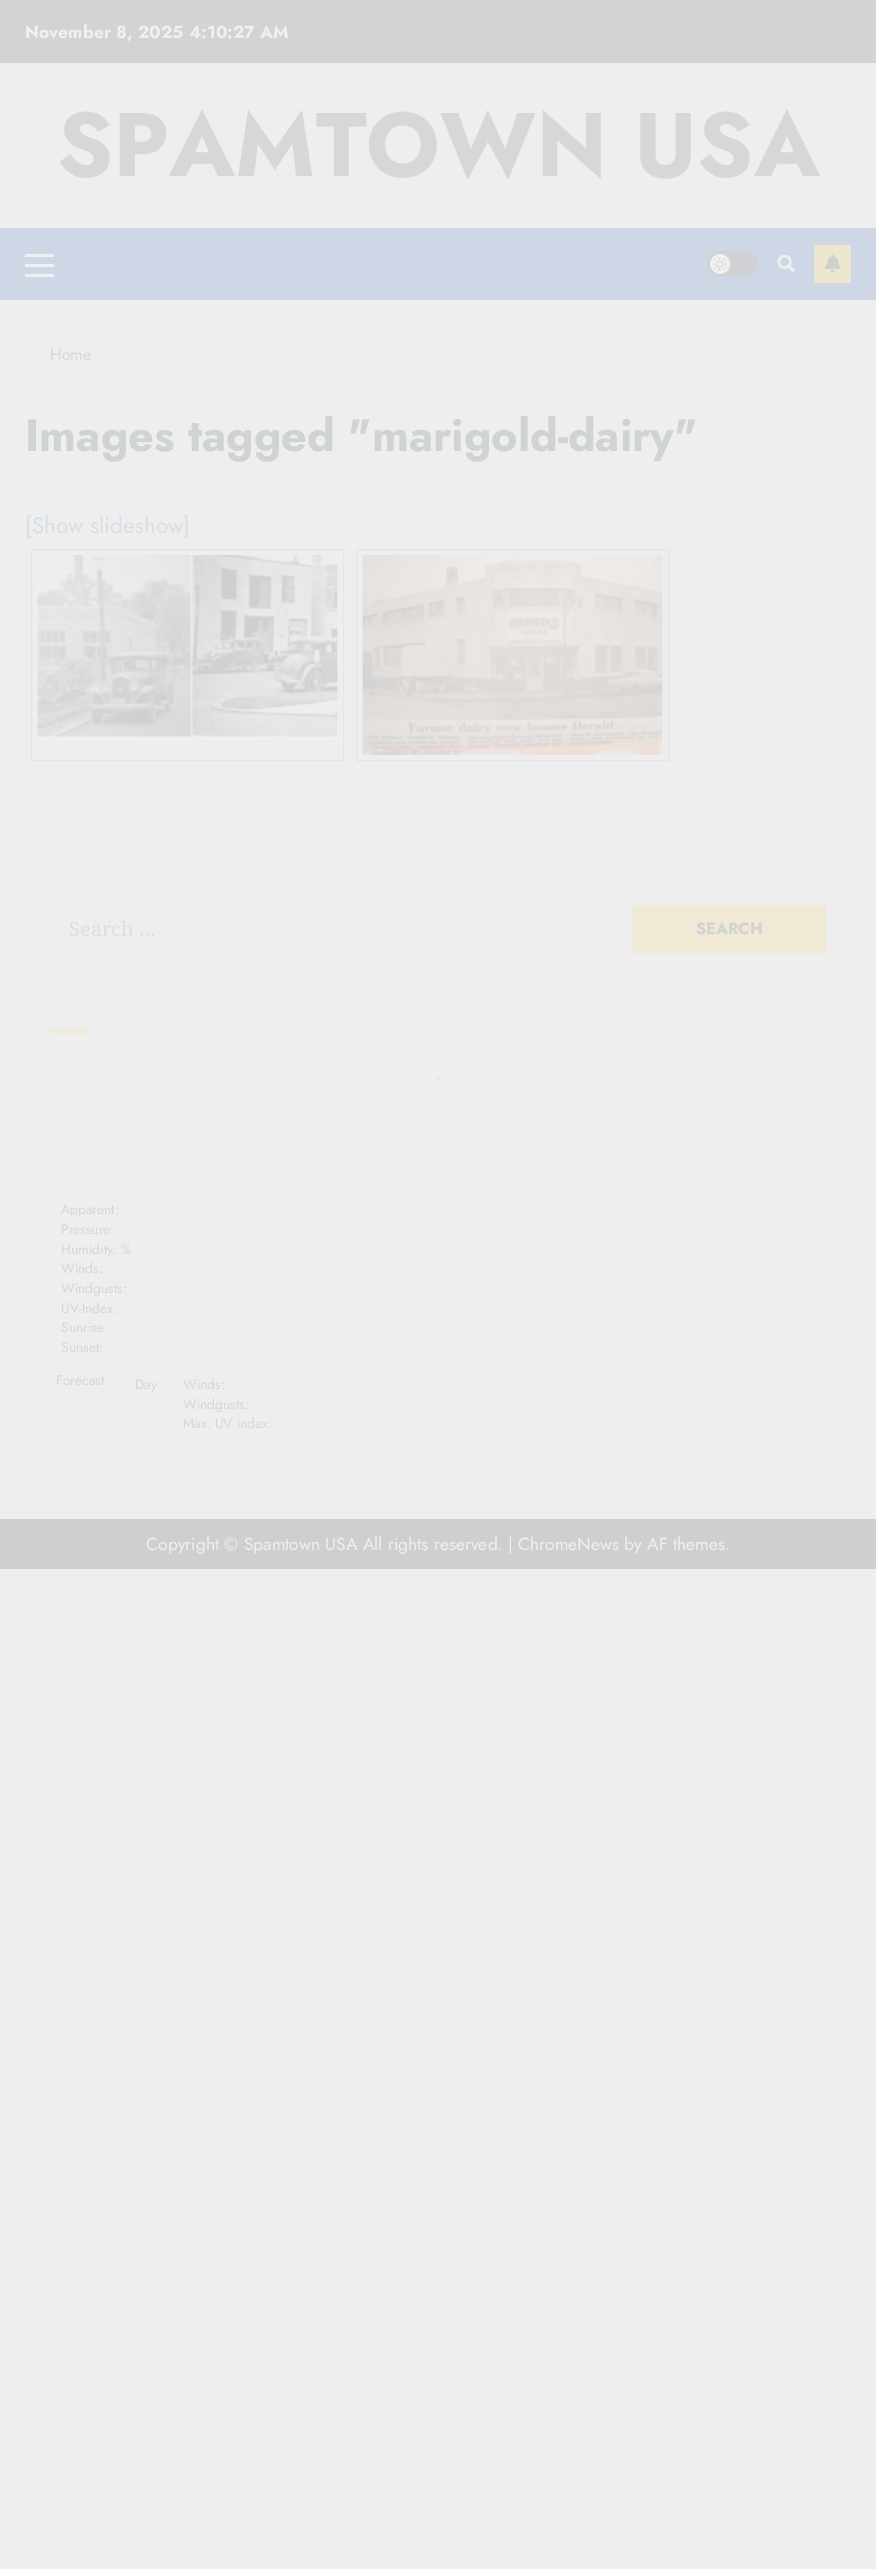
%!PS
<< /PageSize [876 2569] >> setpagedevice
/rgb { 3 { 255 div 3 1 roll } repeat setrgbcolor } def
/font { [ exch dup neg 0 0 3 -1 roll 0 0 ] selectfont } def
/circle { newpath 0 360 arc closepath } def
/roundrect { 5 dict begin { /r /h /w /y /x } { exch def } forall
  x r add y moveto x w add y 2 copy h add r arct x w add y h add x 1 index r arct
  x y h add x y r arct x y 2 copy exch w add exch r arct closepath end } def
/picture { 5 dict begin { /h /w /y /x /name } { exch def } forall
  gsave x y translate w h scale
  w h 8 [w 0 0 h 0 0] name (r) file false 3 colorimage grestore end } def
0 2569 translate 1 -1 scale
4 setmiterlimit
238 238 238 rgb
0 0 876 2569 rectfill
[
  [0 0 876 63 211 211 211]
  [0 228 876 72 207 215 230]
  [25 264 29 3 240 240 240]
  [25 254 29 3 240 240 240]
  [25 274 29 3 240 240 240]
] { aload pop rgb rectfill } forall
207 209 213 rgb
708 251 50 25 12.5 roundrect fill
240 240 240 rgb
720 264 10 circle fill
(img/1.rgb) 713 257 14 14 picture
(img/2.rgb) 777 254 18 19 picture
237 231 207 rgb
814 245 37 38 rectfill
(img/3.rgb) 825 254 16 19 picture
229 229 229 rgb
31.5 549.5 312 211 rectstroke
(img/4.rgb) 37 555 301 185 picture
356.5 549.5 312 211 rectstroke
(img/5.rgb) 362 555 301 200 picture
235 235 235 rgb
50.5 905.5 582 47 rectstroke
[
  [633 905 193 48 240 233 214]
  [50 1029 38 4 240 233 214]
  [0 1519 876 50 207 207 207]
] { aload pop rgb rectfill } forall
/Jost-Bold 17.5 font
240 240 240 rgb
25 38 moveto (November 8, 2025 4:10:27 AM) show
/Jost-Bold 90 font
215 215 215 rgb
57 176 moveto (SPAMTOWN USA) show
/Jost-Regular 16.25 font
50 360 moveto (Home) show
/Jost-Bold 45 font
207 211 209 rgb
25 451 moveto (Images tagged "marigold-dairy") show
/Jost-Regular 22.5 font
214 223 231 rgb
25 533 moveto ([Show slideshow]) show
/NotoSerif-Regular 20 font
222 222 222 rgb
69 936 moveto (Search …) show
/Jost-Bold 16.25 font
207 211 209 rgb
696 934 moveto (SEARCH) show
/Jost-Regular 13.75 font
215 215 215 rgb
[
  [(,) 436 1079]
  [(Apparent:) 61 1214]
  [(Pressure:) 61 1234]
  [(Humidity: %) 61 1254]
  [(Winds:) 61 1273]
  [(Windgusts:) 61 1293]
  [(UV-Index:) 61 1313]
  [(Sunrise:) 61 1332]
  [(Sunset:) 61 1352]
  [(Forecast) 56 1385]
  [(Day) 135 1389]
  [(Winds:) 183 1389]
  [(Windgusts:) 183 1409]
  [(Max. UV index:) 183 1428]
] { aload pop moveto show } forall
/Jost-Regular 17.5 font
240 240 240 rgb
146 1550 moveto (Copyright © Spamtown USA All rights reserved. | ChromeNews by AF themes.) show
showpage
